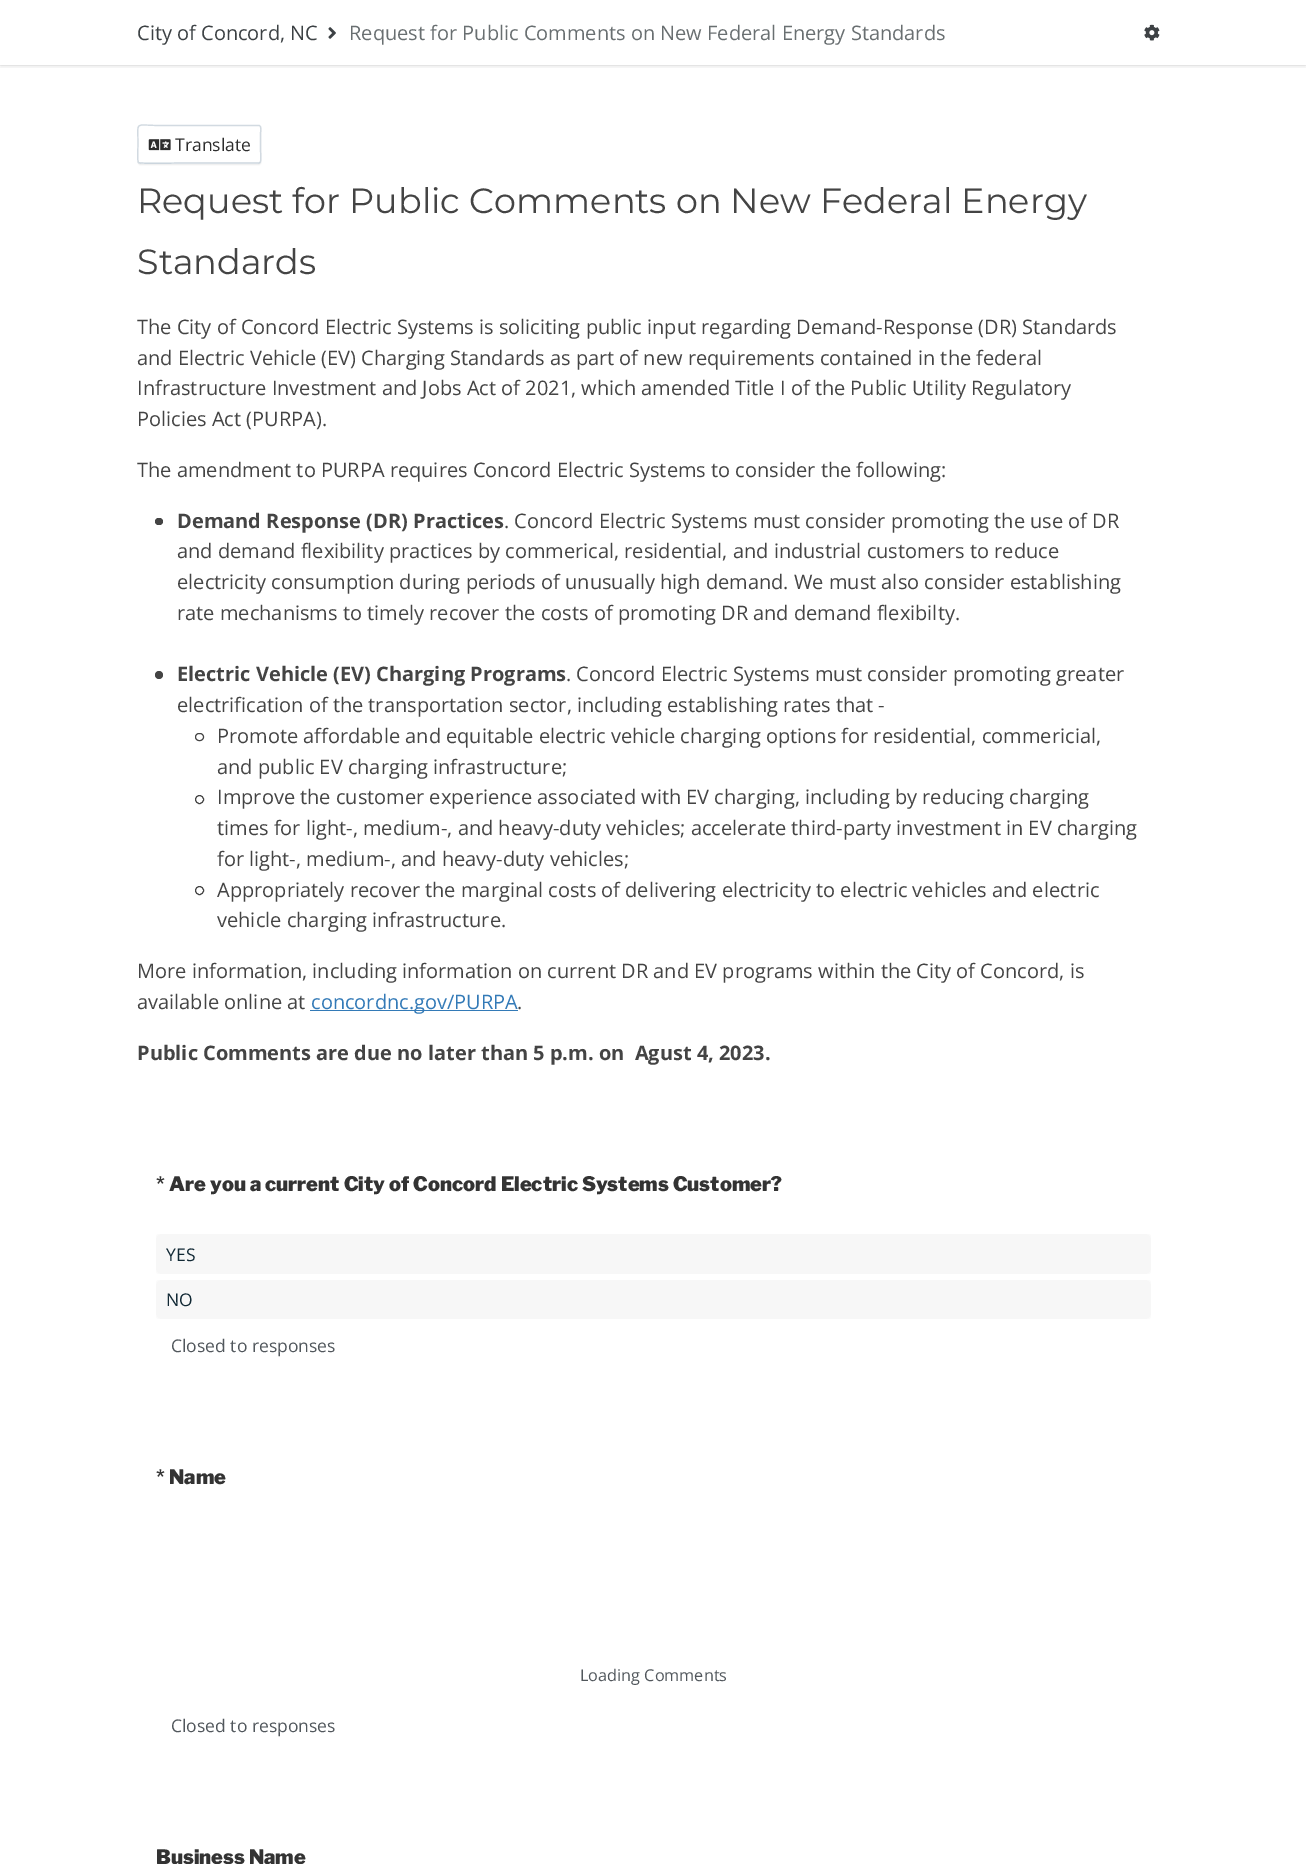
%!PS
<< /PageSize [1306 1864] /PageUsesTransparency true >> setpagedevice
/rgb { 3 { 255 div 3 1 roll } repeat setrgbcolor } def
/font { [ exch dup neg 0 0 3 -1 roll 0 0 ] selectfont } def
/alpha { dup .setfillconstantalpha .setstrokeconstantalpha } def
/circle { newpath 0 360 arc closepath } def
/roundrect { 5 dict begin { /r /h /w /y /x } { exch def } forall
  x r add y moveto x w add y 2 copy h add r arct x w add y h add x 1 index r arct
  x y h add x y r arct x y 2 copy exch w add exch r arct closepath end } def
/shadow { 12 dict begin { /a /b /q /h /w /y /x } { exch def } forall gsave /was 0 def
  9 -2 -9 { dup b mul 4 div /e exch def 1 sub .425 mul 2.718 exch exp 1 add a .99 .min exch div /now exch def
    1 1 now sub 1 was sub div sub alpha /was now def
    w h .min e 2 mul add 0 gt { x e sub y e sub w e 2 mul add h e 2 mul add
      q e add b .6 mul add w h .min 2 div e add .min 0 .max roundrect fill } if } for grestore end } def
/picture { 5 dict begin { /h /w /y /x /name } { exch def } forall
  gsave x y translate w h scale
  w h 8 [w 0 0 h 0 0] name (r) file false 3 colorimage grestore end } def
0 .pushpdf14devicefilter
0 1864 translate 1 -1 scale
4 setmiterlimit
255 255 255 rgb
0 0 1306 1864 rectfill
242 242 242 rgb
0 65 1306 1 rectfill
gsave
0 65 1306 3 rectclip
0 0 0 rgb
0 3 1306 65 0 1 0.05 shadow
grestore
(img/1.rgb) 328 27 8 12 picture
(img/2.rgb) 1144 24 16 17 picture
gsave
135 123 moveto 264 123 lineto 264 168 lineto 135 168 lineto closepath 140.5 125 moveto 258.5 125 lineto 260 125 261 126 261 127.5 curveto 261 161.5 lineto 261 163 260 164 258.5 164 curveto 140.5 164 lineto 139 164 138 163 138 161.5 curveto 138 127.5 lineto 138 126 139 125 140.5 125 curveto closepath eoclip newpath
90 90 90 rgb
138 126 123 39 2.5 0.5 0.1 shadow
grestore
203 213 221 rgb
1.2 setlinewidth
260 162.5 moveto 259 163 lineto 179.5 163 lineto 177 163 140.5 164 138.5 162.5 curveto stroke
210 218 225 rgb
138.5 162.5 moveto 137 161 138 147 138 144.5 curveto 138 120 133.5 125.5 160 125.5 curveto 259 125.5 lineto 262 125.5 260.5 132.5 260.5 133 curveto 260.5 150 lineto 260.5 152 261.5 161 260 162.5 curveto stroke
(img/3.rgb) 148 139 23 12 picture
68 68 68 rgb
155 518 8 7 3.5 roundrect fill
159 675 4 circle fill
1 setlinewidth
195.5 733.5 8 7 3.5 roundrect stroke
199.5 799.5 4 circle stroke
199.5 890.5 4 circle stroke
51 122 183 rgb
310 1010 208 1 rectfill
251 251 251 rgb
156 1234 995 40 2.5 roundrect fill
247 247 247 rgb
156 1234 995 40 6 roundrect fill
251 251 251 rgb
156 1280 995 39 2.5 roundrect fill
247 247 247 rgb
156 1280 995 39 6 roundrect fill
/OpenSans-Regular 20 font
60 65 68 rgb
137 40 moveto (City of Concord, NC) show
105 111 113 rgb
349 40 moveto (Request for Public Comments on New Federal Energy Standards) show
/OpenSans-Regular 17.5 font
45 45 45 rgb
175 151 moveto (Translate) show
/Montserrat-Regular 35 font
68 68 68 rgb
137 213 moveto (Request for Public Comments on New Federal Energy) show
137 274 moveto (Standards) show
/OpenSans-Regular 20 font
[
  [(The City of Concord Electric Systems is soliciting public input regarding Demand-Response \(DR\) Standards) 137 334]
  [(and Electric Vehicle \(EV\) Charging Standards as part of new requirements contained in the federal) 137 365]
  [(Infrastructure Investment and Jobs Act of 2021, which amended Title I of the Public Utility Regulatory) 137 395]
  [(Policies Act \(PURPA\).) 137 426]
  [(The amendment to PURPA requires Concord Electric Systems to consider the following:) 137 477]
] { aload pop moveto show } forall
/OpenSans-Bold 20 font
177 528 moveto (Demand Response \(DR\) Practices) show
/OpenSans-Regular 20 font
[
  [(. Concord Electric Systems must consider promoting the use of DR) 504 528]
  [(and demand flexibility practices by commerical, residential, and industrial customers to reduce) 177 558]
  [(electricity consumption during periods of unusually high demand. We must also consider establishing) 177 589]
  [(rate mechanisms to timely recover the costs of promoting DR and demand flexibilty.) 177 620]
] { aload pop moveto show } forall
/OpenSans-Bold 20 font
177 681 moveto (Electric Vehicle \(EV\) Charging Programs) show
/OpenSans-Regular 20 font
[
  [(. Concord Electric Systems must consider promoting greater) 566 681]
  [(electrification of the transportation sector, including establishing rates that -) 177 712]
  [(Promote affordable and equitable electric vehicle charging options for residential, commericial,) 217 743]
  [(and public EV charging infrastructure;) 217 774]
  [(Improve the customer experience associated with EV charging, including by reducing charging) 217 804]
  [(times for light-, medium-, and heavy-duty vehicles; accelerate third-party investment in EV charging) 217 835]
  [(for light-, medium-, and heavy-duty vehicles;) 217 866]
  [(Appropriately recover the marginal costs of delivering electricity to electric vehicles and electric) 217 897]
  [(vehicle charging infrastructure.) 217 927]
  [(More information, including information on current DR and EV programs within the City of Concord, is) 137 978]
  [(available online at) 137 1009]
] { aload pop moveto show } forall
51 122 183 rgb
311 1009 moveto (concordnc.gov/PURPA) show
68 68 68 rgb
517 1009 moveto (.) show
/OpenSans-Bold 20 font
137 1060 moveto (Public Comments are due no later than 5 p.m. on  Agust 4, 2023.) show
/LibreFranklin-SemiBold 20 font
51 51 51 rgb
156 1191 moveto (*) show
/LibreFranklin-Black 20 font
169 1191 moveto (Are you a current City of Concord Electric Systems Customer?) show
/OpenSans-Regular 17.5 font
18 41 53 rgb
166 1261 moveto (YES) show
166 1306 moveto (NO) show
81 87 92 rgb
171 1352 moveto (Closed to responses) show
/LibreFranklin-SemiBold 20 font
51 51 51 rgb
156 1484 moveto (*) show
/LibreFranklin-Black 20 font
169 1484 moveto (Name) show
/OpenSans-Regular 16.25 font
81 87 92 rgb
580 1681 moveto (Loading Comments) show
/OpenSans-Regular 17.5 font
171 1732 moveto (Closed to responses) show
/LibreFranklin-Black 20 font
51 51 51 rgb
156 1864 moveto (Business Name) show
.poppdf14devicefilter showpage
